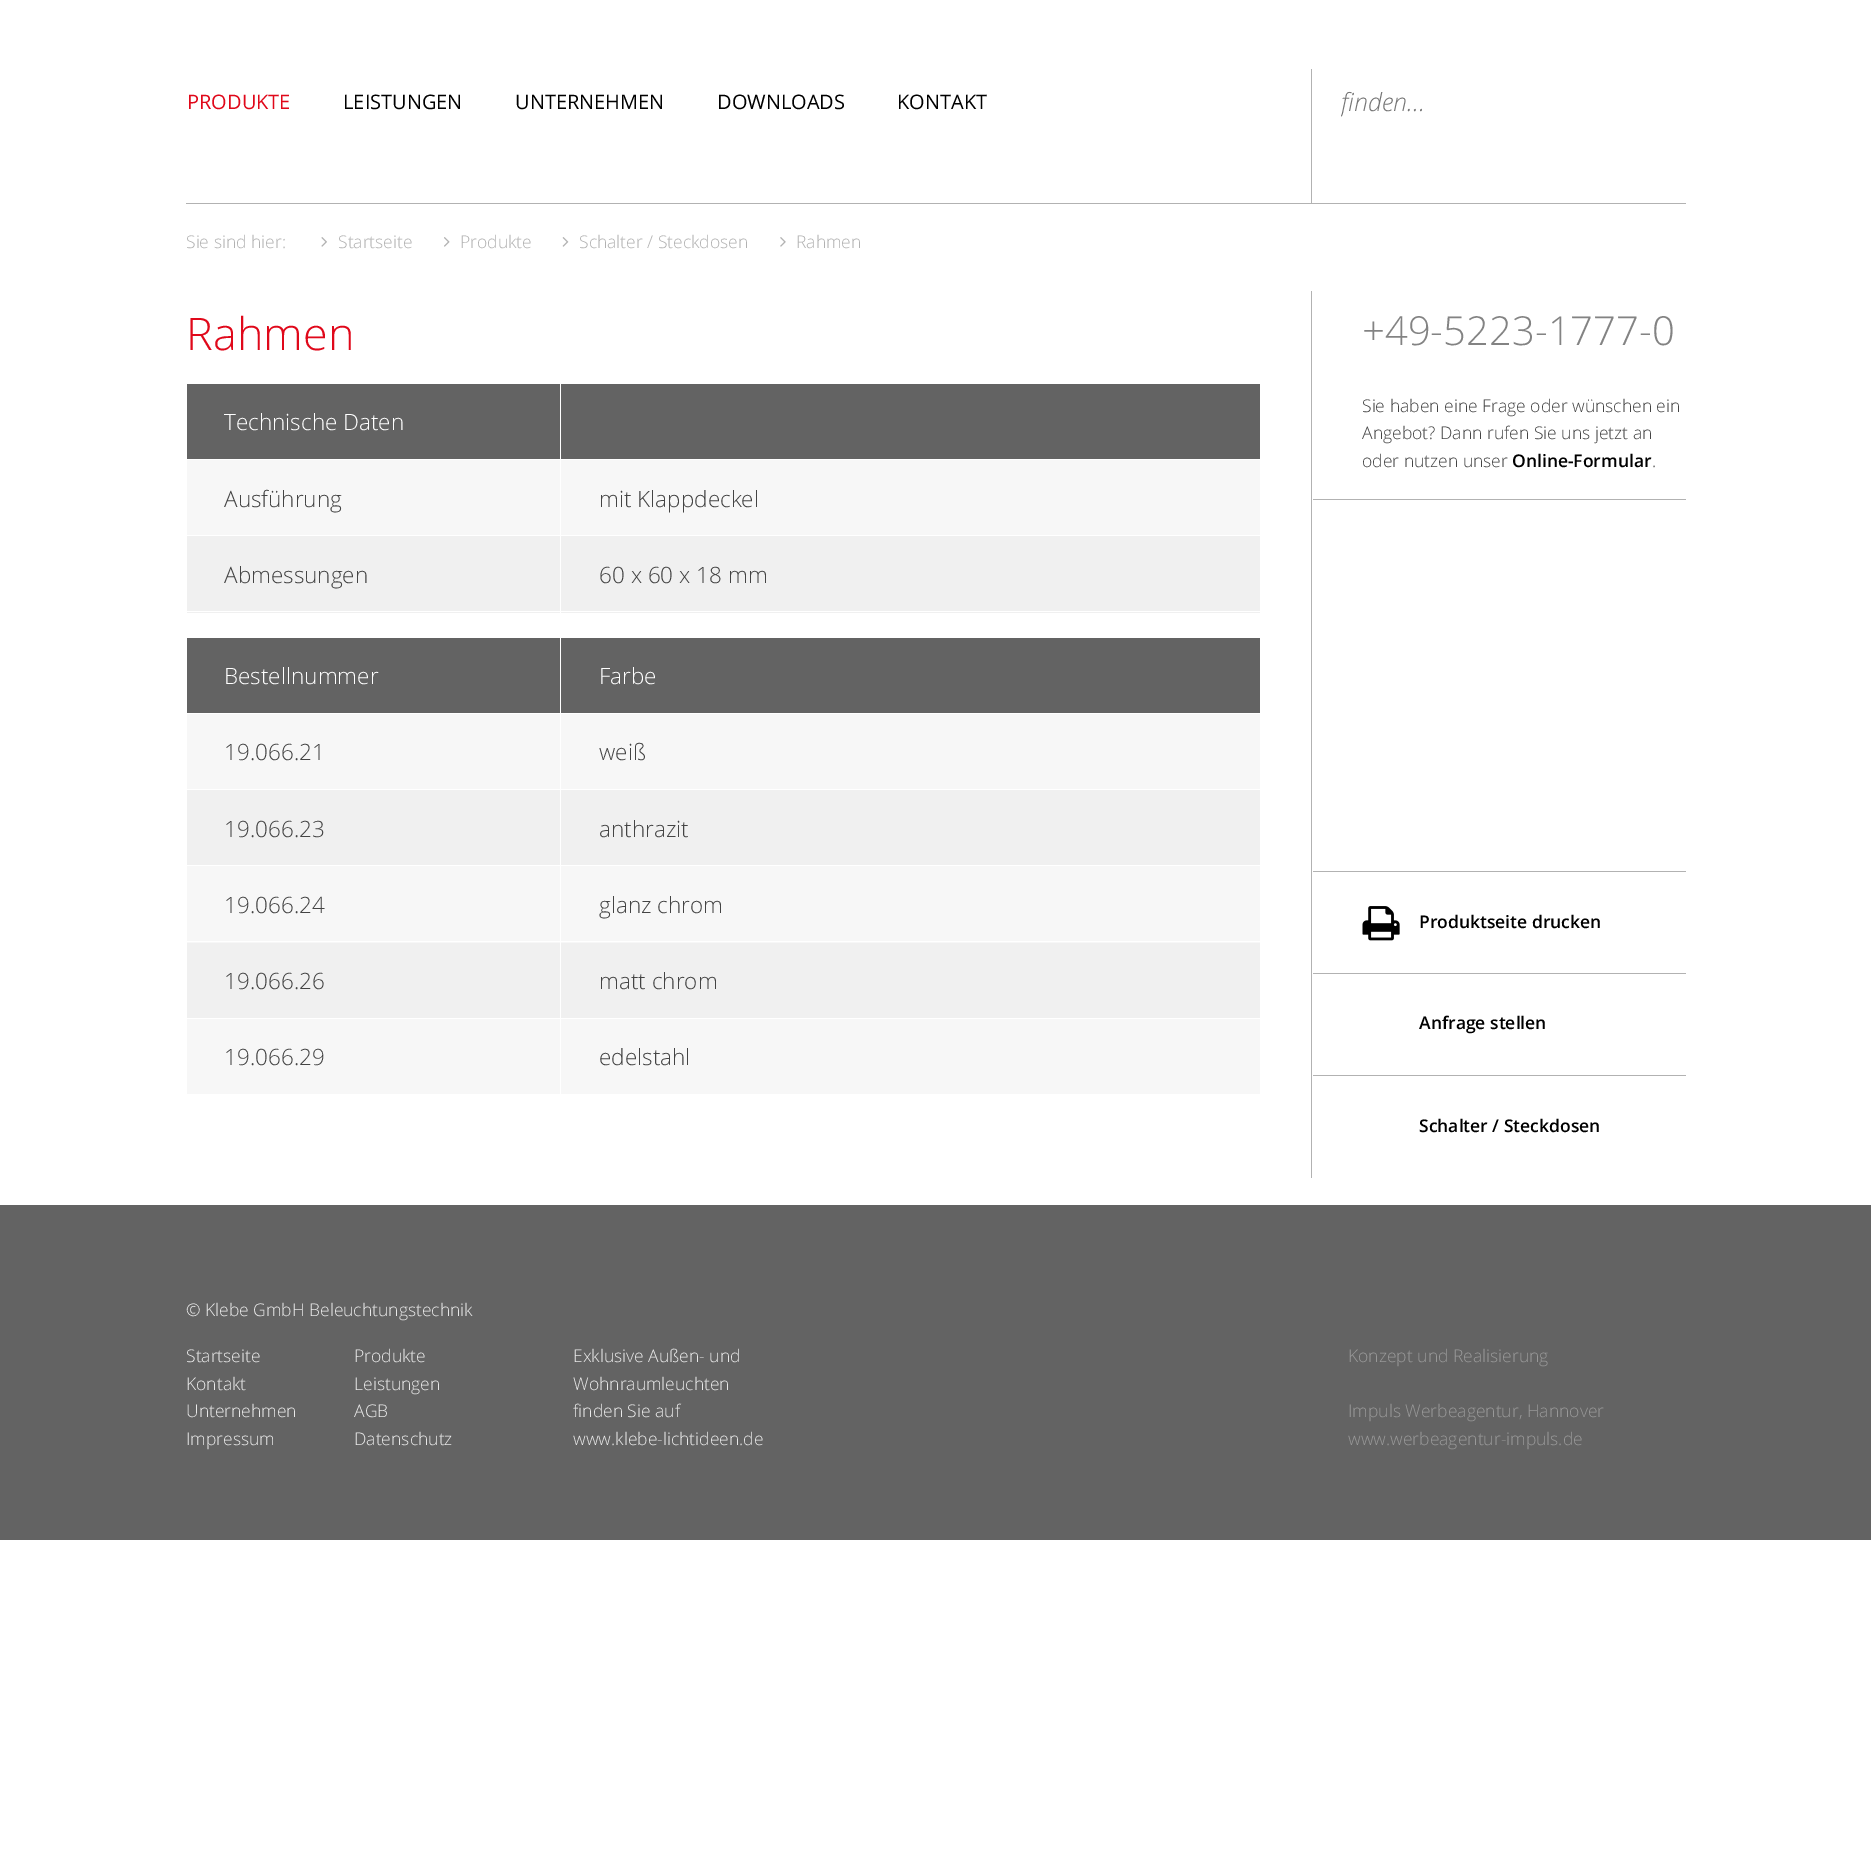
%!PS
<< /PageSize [1871 1854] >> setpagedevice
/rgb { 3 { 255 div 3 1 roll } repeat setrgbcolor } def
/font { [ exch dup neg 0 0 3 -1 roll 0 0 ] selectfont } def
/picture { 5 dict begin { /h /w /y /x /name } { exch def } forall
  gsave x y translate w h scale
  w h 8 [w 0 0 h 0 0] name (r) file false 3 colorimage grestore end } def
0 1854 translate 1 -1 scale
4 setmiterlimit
255 255 255 rgb
0 0 1871 1854 rectfill
178 178 178 rgb
186 203 1500 1 rectfill
1311 69 1 134 rectfill
(img/1.rgb) 321 237 6 10 picture
(img/2.rgb) 444 237 6 10 picture
(img/3.rgb) 562 237 7 10 picture
(img/4.rgb) 780 237 6 10 picture
[
  [187 384 373 75 99 99 99]
  [561 384 699 75 99 99 99]
  [187 460 373 75 247 247 247]
  [561 460 699 75 247 247 247]
  [187 536 373 77 240 240 240]
  [561 536 699 77 240 240 240]
  [186 611 1075 1 255 255 255]
  [187 638 373 75 99 99 99]
  [561 638 699 75 99 99 99]
  [187 714 373 75 247 247 247]
  [561 714 699 75 247 247 247]
  [187 790 373 75 240 240 240]
  [561 790 699 75 240 240 240]
  [187 866 373 77 247 247 247]
  [561 866 699 77 247 247 247]
  [187 943 373 75 240 240 240]
  [561 943 699 75 240 240 240]
  [186 941 1075 1 255 255 255]
  [187 1019 373 75 247 247 247]
  [561 1019 699 75 247 247 247]
  [1311 291 1 887 178 178 178]
  [1313 499 373 1 178 178 178]
  [1313 871 373 1 178 178 178]
] { aload pop rgb rectfill } forall
(img/5.rgb) 1362 906 38 35 picture
[
  [1313 973 373 1 178 178 178]
  [1313 1075 373 1 178 178 178]
  [0 1205 1871 335 99 99 99]
] { aload pop rgb rectfill } forall
/OpenSans-Regular 20 font
224 8 26 rgb
187 109 moveto (PRODUKTE) show
0 0 0 rgb
[
  [(LEISTUNGEN) 343 109]
  [(UNTERNEHMEN) 515 109]
  [(DOWNLOADS) 717 109]
  [(KONTAKT) 897 109]
] { aload pop moveto show } forall
gsave
1341 85 234 34 rectclip
/OpenSans-LightItalic 25 font
117 117 117 rgb
1341 111 moveto (finden…) show
grestore
/OpenSans-Light 17.5 font
178 178 178 rgb
[
  [(Sie sind hier:) 186 248]
  [(Startseite) 338 248]
  [(Produkte) 460 248]
  [(Schalter / Steckdosen) 579 248]
  [(Rahmen) 796 248]
] { aload pop moveto show } forall
/OpenSans-Light 45 font
224 8 26 rgb
186 350 moveto (Rahmen) show
/OpenSans-Light 22.5 font
255 255 255 rgb
224 430 moveto (Technische Daten) show
68 68 68 rgb
[
  [(Ausführung) 224 507]
  [(mit Klappdeckel) 599 507]
  [(Abmessungen) 224 583]
  [(60 x 60 x 18 mm) 599 583]
] { aload pop moveto show } forall
255 255 255 rgb
224 684 moveto (Bestellnummer) show
599 684 moveto (Farbe) show
68 68 68 rgb
[
  [(19.066.21) 224 760]
  [(weiß) 599 760]
  [(19.066.23) 224 837]
  [(anthrazit) 599 837]
  [(19.066.24) 224 913]
  [(glanz chrom) 599 913]
  [(19.066.26) 224 989]
  [(matt chrom) 599 989]
  [(19.066.29) 224 1065]
  [(edelstahl) 599 1065]
] { aload pop moveto show } forall
/OpenSans-Light 40 font
131 131 131 rgb
1362 345 moveto (+49-5223-1777-0) show
/OpenSans-Light 17.5 font
68 68 68 rgb
[
  [(Sie haben eine Frage oder wünschen ein) 1362 412]
  [(Angebot? Dann rufen Sie uns jetzt an) 1362 439]
  [(oder nutzen unser) 1362 467]
] { aload pop moveto show } forall
/OpenSans-SemiBold 17.5 font
0 0 0 rgb
1512 467 moveto (Online-Formular) show
/OpenSans-Light 17.5 font
68 68 68 rgb
1652 467 moveto (.) show
/OpenSans-SemiBold 17.5 font
0 0 0 rgb
[
  [(Produktseite drucken) 1419 928]
  [(Anfrage stellen) 1419 1029]
  [(Schalter / Steckdosen) 1419 1132]
] { aload pop moveto show } forall
/OpenSans-Light 17.5 font
233 233 233 rgb
[
  [(© Klebe GmbH Beleuchtungstechnik) 186 1316]
  [(Startseite) 186 1362]
  [(Produkte) 354 1362]
  [(Kontakt) 186 1390]
  [(Leistungen) 354 1390]
  [(Unternehmen) 186 1417]
  [(AGB) 354 1417]
  [(Impressum) 186 1445]
  [(Datenschutz) 354 1445]
  [(Exklusive Außen- und) 573 1362]
  [(Wohnraumleuchten) 573 1390]
  [(finden Sie auf) 573 1417]
  [(www.klebe-lichtideen.de) 573 1445]
] { aload pop moveto show } forall
153 153 153 rgb
[
  [(Konzept und Realisierung) 1348 1362]
  [(Impuls Werbeagentur, Hannover) 1348 1417]
  [(www.werbeagentur-impuls.de) 1348 1445]
] { aload pop moveto show } forall
showpage
